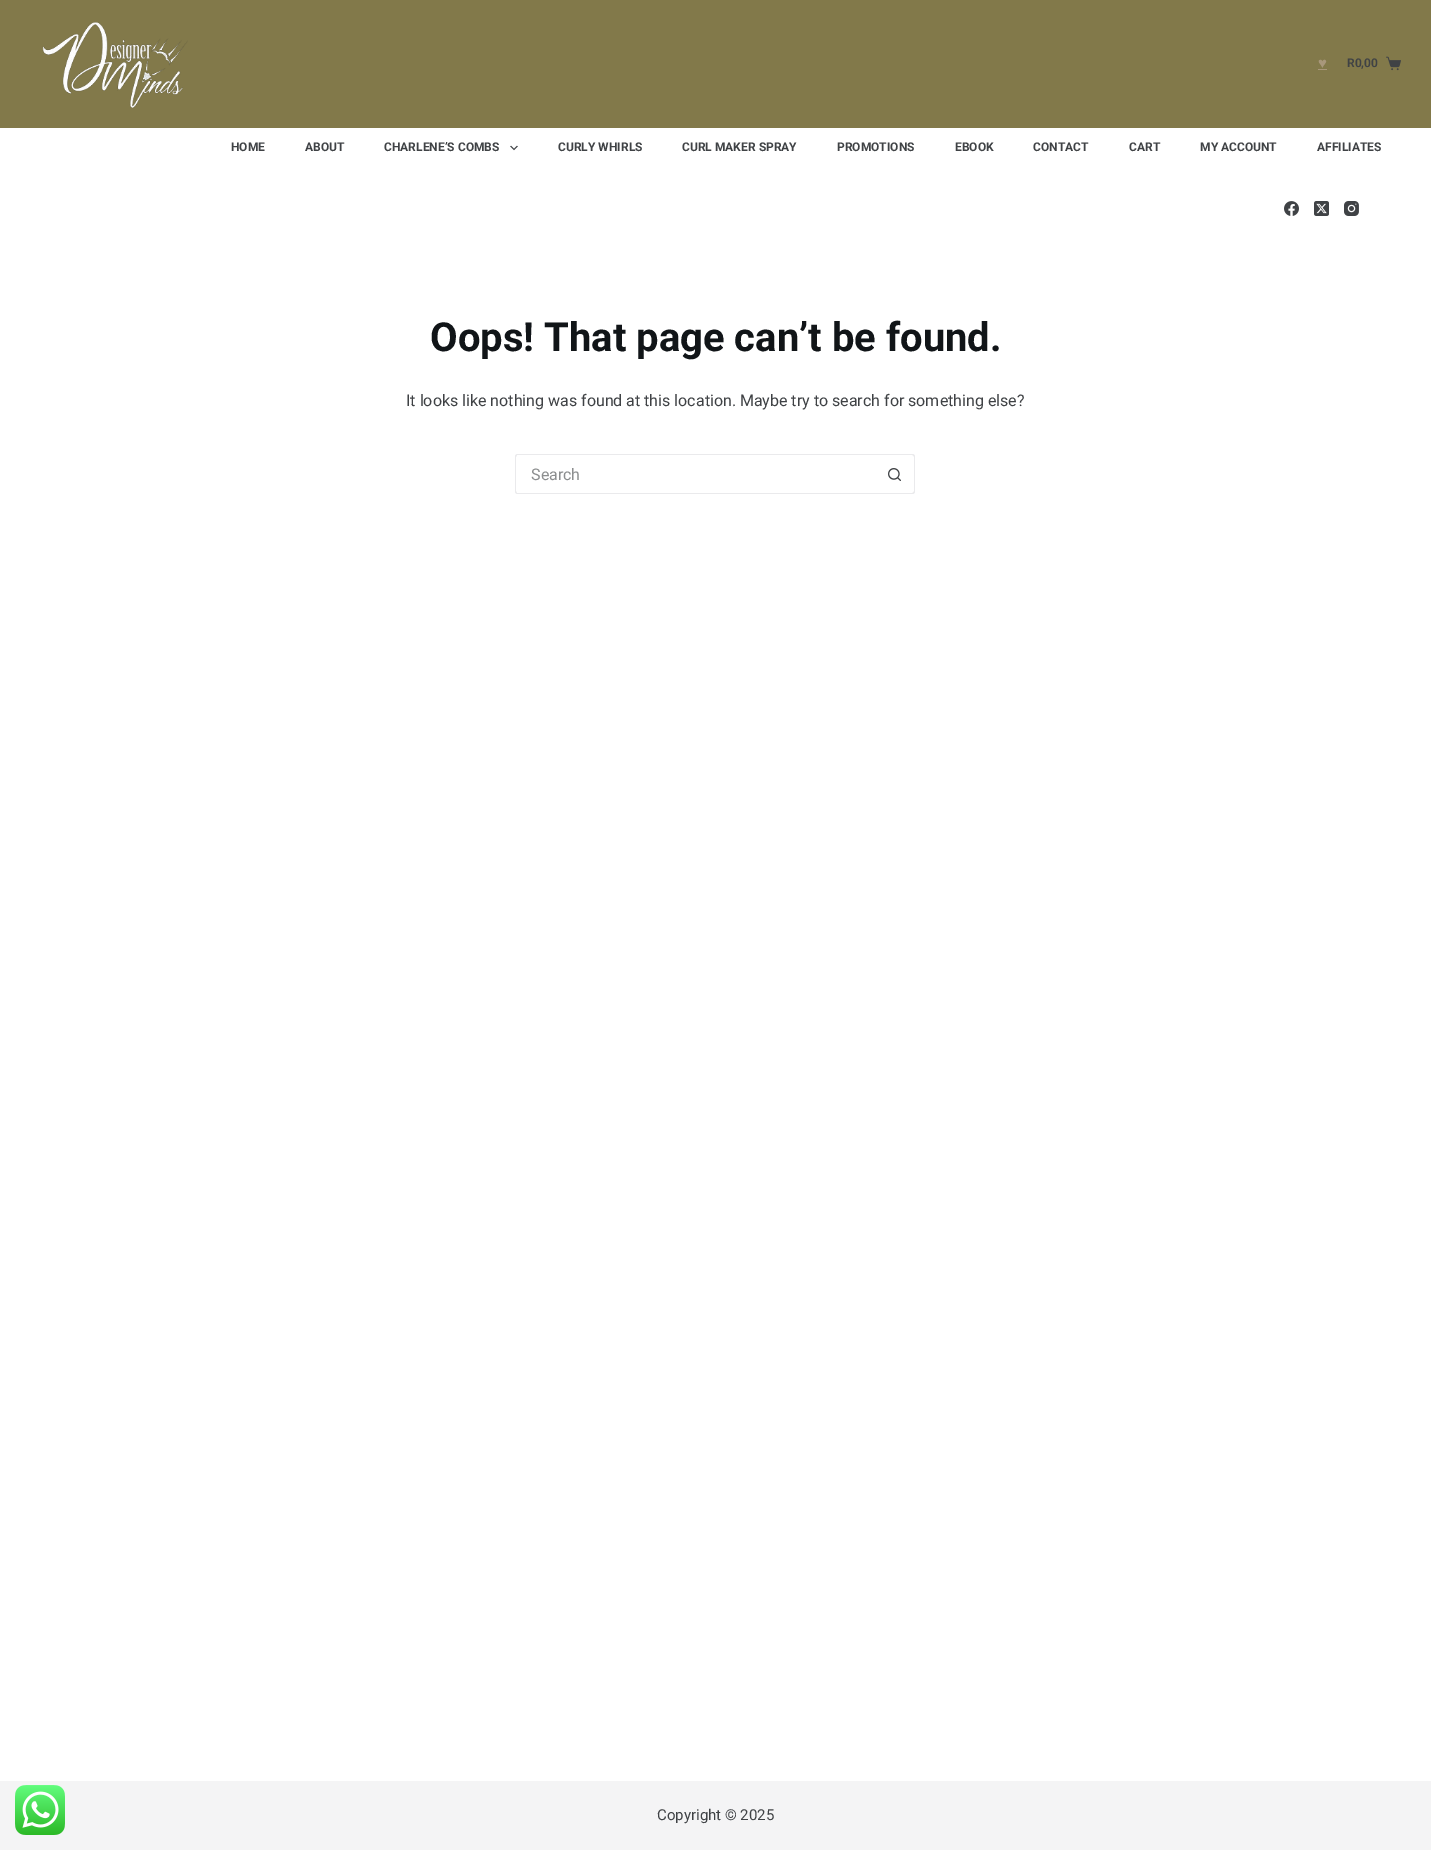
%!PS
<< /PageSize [1431 1850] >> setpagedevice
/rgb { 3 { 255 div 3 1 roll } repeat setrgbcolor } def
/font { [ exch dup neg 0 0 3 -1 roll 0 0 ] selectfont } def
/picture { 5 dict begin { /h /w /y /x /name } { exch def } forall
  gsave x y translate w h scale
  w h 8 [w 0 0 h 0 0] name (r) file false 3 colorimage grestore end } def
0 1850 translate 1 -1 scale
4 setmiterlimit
255 255 255 rgb
0 0 1431 1850 rectfill
244 244 245 rgb
0 1781 1431 69 rectfill
(img/1.rgb) 15 1785 50 50 picture
130 121 74 rgb
0 0 1431 128 rectfill
(img/2.rgb) 42 22 146 86 picture
168 151 123 rgb
1318 69 9 1 rectfill
(img/3.rgb) 1386 56 15 15 picture
(img/4.rgb) 510 145 8 6 picture
(img/5.rgb) 1284 201 15 15 picture
(img/6.rgb) 1314 201 15 15 picture
(img/7.rgb) 1344 201 15 15 picture
234 234 236 rgb
518 454 moveto 875 454 lineto 875 494 lineto 518 494 lineto 516 494 515 493 515 491 curveto 515 457 lineto 515 455 516 454 518 454 curveto closepath 518 455 moveto 875 455 lineto 875 493 lineto 517 493 lineto 515 491 516 486 516 485 curveto 516 457 lineto 517 455 lineto closepath eofill
875 454 moveto 912 454 lineto 914 454 915 455 915 457 curveto 915 491 lineto 915 493 914 494 912 494 curveto 875 494 lineto closepath 875 455 moveto 912 455 lineto 913 455 914 456 914 457 curveto 914 491 lineto 914 492 913 493 912 493 curveto 875 493 lineto closepath eofill
(img/8.rgb) 888 468 13 13 picture
/LiberationSans-Regular 15 font
168 151 123 rgb
1318 68 moveto (♥) show
/Roboto-SemiBold 12 font
63 66 69 rgb
1347 67 moveto (R0,00) show
/Roboto-Bold 12 font
[
  [(HOME) 231 151]
  [(ABOUT) 305 151]
  [(CHARLENE’S COMBS) 384 151]
  [(CURLY WHIRLS) 558 151]
  [(CURL MAKER SPRAY) 682 151]
  [(PROMOTIONS) 837 151]
  [(EBOOK) 955 151]
  [(CONTACT) 1033 151]
  [(CART) 1129 151]
  [(MY ACCOUNT) 1200 151]
  [(AFFILIATES) 1317 151]
] { aload pop moveto show } forall
/Roboto-Bold 40 font
17 21 24 rgb
430 351 moveto (Oops! That page can’t be found.) show
/Roboto-Regular 16 font
63 66 69 rgb
406 406 moveto (It looks like nothing was found at this location. Maybe try to search for something else?) show
140 142 143 rgb
531 480 moveto (Search) show
/Roboto-Regular 15 font
63 66 69 rgb
657 1820 moveto (Copyright © 2025) show
showpage
